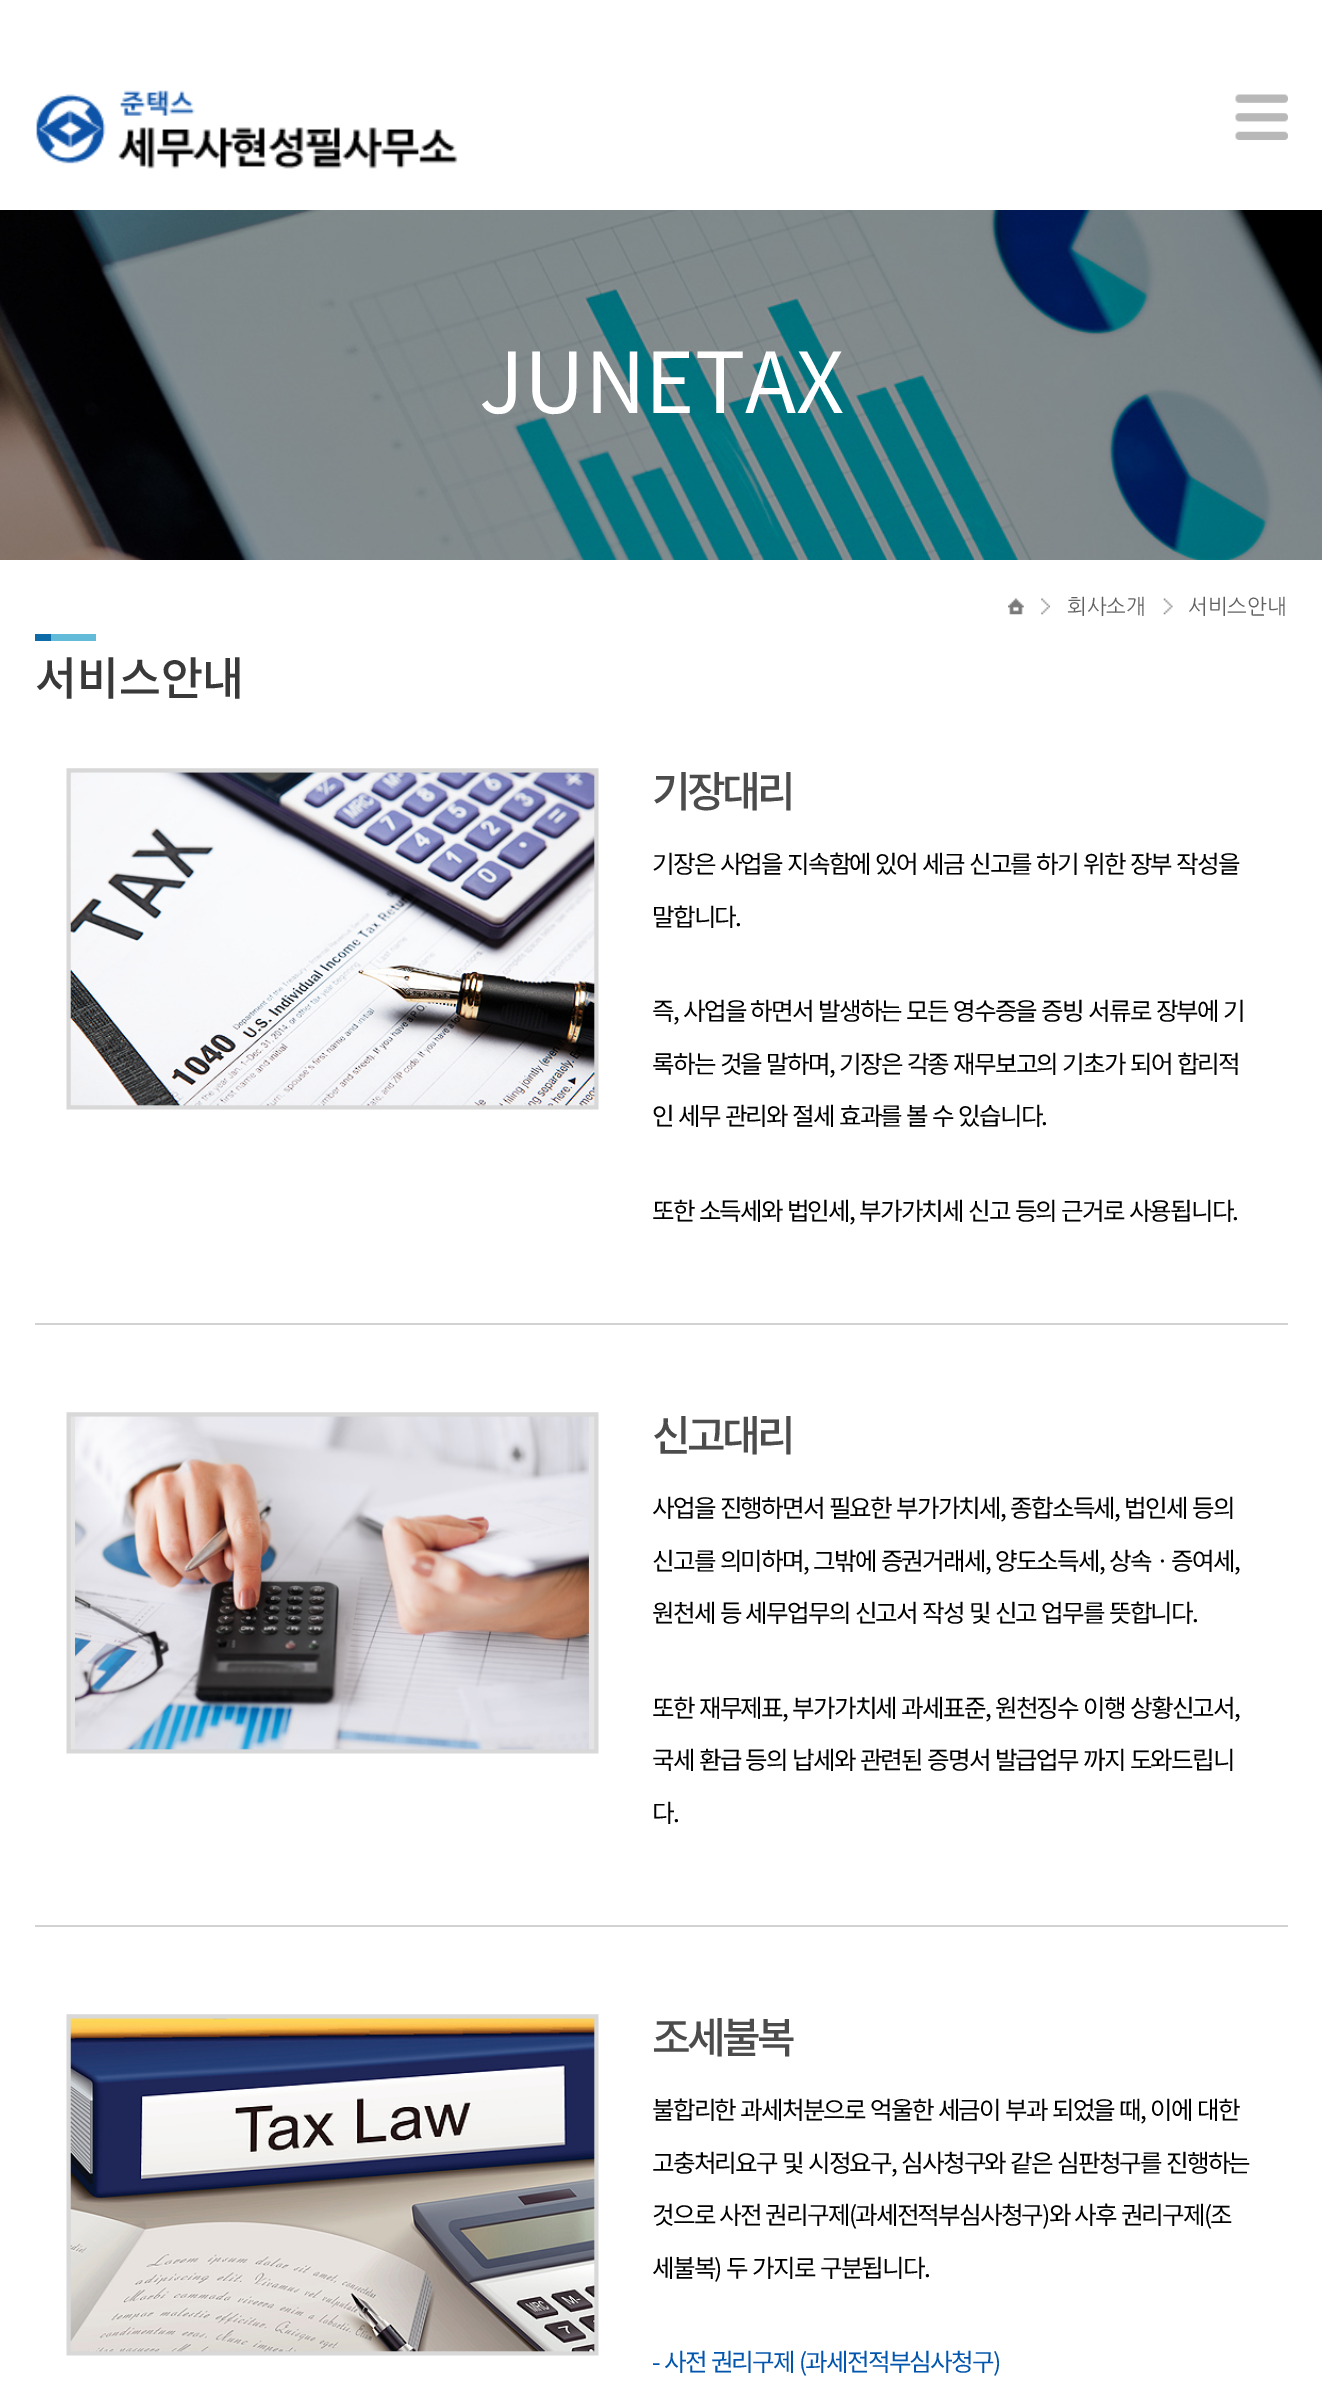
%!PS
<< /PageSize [1322 2382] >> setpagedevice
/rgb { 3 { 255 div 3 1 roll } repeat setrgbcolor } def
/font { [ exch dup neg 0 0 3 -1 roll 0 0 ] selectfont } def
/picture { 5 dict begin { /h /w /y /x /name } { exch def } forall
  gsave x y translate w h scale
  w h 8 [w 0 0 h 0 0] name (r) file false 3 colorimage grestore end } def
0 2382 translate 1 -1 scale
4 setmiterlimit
255 255 255 rgb
0 0 1322 2382 rectfill
(img/1.rgb) 36 90 422 79 picture
(img/2.rgb) 1235 94 53 46 picture
(img/3.rgb) 0 210 1322 350 picture
(img/4.rgb) 1008 598 16 17 picture
(img/5.rgb) 1041 598 9 17 picture
(img/6.rgb) 1163 598 10 17 picture
13 107 167 rgb
35 634 16 7 rectfill
98 187 217 rgb
51 634 45 7 rectfill
(img/7.rgb) 66 768 533 342 picture
210 210 210 rgb
35 1323 1253 2 rectfill
(img/8.rgb) 66 1412 533 342 picture
35 1925 1253 2 rectfill
(img/9.rgb) 66 2014 533 342 picture
/NotoSansKR-Regular 84 font
255 255 255 rgb
479 413 moveto (JUNETAX) show
/NanumGothic-Regular 21 font
97 97 97 rgb
1067 614 moveto (회사소개) show
1188 614 moveto (서비스안내) show
/NotoSansKR-Medium 45.5 font
57 57 57 rgb
35 695 moveto (서비스안내) show
/NotoSansKR-Medium 42 font
76 76 76 rgb
652 807 moveto -3.5 0 (기장대리) ashow
/NotoSansKR-Regular 24.5 font
0 0 0 rgb
652 873 moveto 1.4 0 32 -1.75 0 (기장은 사업을 지속함에 있어 세금 신고를 하기 위한 장부 작성을) awidthshow
652 926 moveto -1.75 0 (말합니다.) ashow
652 1020 moveto 1.4 0 32 -1.75 0 (즉, 사업을 하면서 발생하는 모든 영수증을 증빙 서류로 장부에 기) awidthshow
652 1073 moveto 1.5 0 32 -1.75 0 (록하는 것을 말하며,) awidthshow
839 1073 moveto 1.4 0 32 -1.75 0 (기장은 각종 재무보고의 기초가 되어 합리적) awidthshow
652 1125 moveto 1.4 0 32 -1.75 0 (인 세무 관리와 절세 효과를 볼 수 있습니다.) awidthshow
652 1220 moveto 1.25 0 32 -1.75 0 (또한 소득세와 법인세, 부가가치세 신고 등의 근거로 사용됩니다.) awidthshow
/NotoSansKR-Medium 42 font
76 76 76 rgb
652 1451 moveto -3.5 0 (신고대리) ashow
/NotoSansKR-Regular 24.5 font
0 0 0 rgb
652 1517 moveto 1.4 0 32 -1.75 0 (사업을 진행하면서 필요한 부가가치세, 종합소득세, 법인세 등의) awidthshow
652 1570 moveto 1.4 0 32 -1.75 0 (신고를 의미하며,) awidthshow
813 1570 moveto 1.5 0 32 -1.75 0 (그밖에 증권거래세, 양도소득세, 상속ㆍ증여세,) awidthshow
652 1622 moveto 1.4 0 32 -1.75 0 (원천세 등 세무업무의 신고서 작성 및 신고 업무를 뜻합니다.) awidthshow
652 1717 moveto 1.5 0 32 -1.75 0 (또한 재무제표, 부가가치세 과세표준, 원천징수 이행 상황신고서,) awidthshow
652 1769 moveto 1.4 0 32 -1.75 0 (국세 환급 등의 납세와 관련된) awidthshow
927 1769 moveto 1.4 0 32 -1.75 0 (증명서 발급업무 까지 도와드립니) awidthshow
652 1822 moveto -1.75 0 (다.) ashow
/NotoSansKR-Medium 42 font
76 76 76 rgb
652 2053 moveto -3.5 0 (조세불복) ashow
/NotoSansKR-Regular 24.5 font
0 0 0 rgb
652 2119 moveto 1.4 0 32 -1.75 0 (불합리한 과세처분으로 억울한 세금이 부과 되었을 때, 이에 대한) awidthshow
652 2172 moveto 1.4 0 32 -1.75 0 (고충처리요구 및 시정요구, 심사청구와 같은 심판청구를 진행하는) awidthshow
652 2224 moveto 1 0 32 -1.75 0 (것으로 사전 권리구제\(과세전적부심사청구\)와 사후 권리구제\(조) awidthshow
652 2277 moveto 1.5 0 32 -1.75 0 (세불복\) 두 가지로 구분됩니다.) awidthshow
1 85 173 rgb
652 2371 moveto 1.4 0 32 -1.75 0 (- 사전 권리구제 \(과세전적부심사청구\)) awidthshow
showpage
